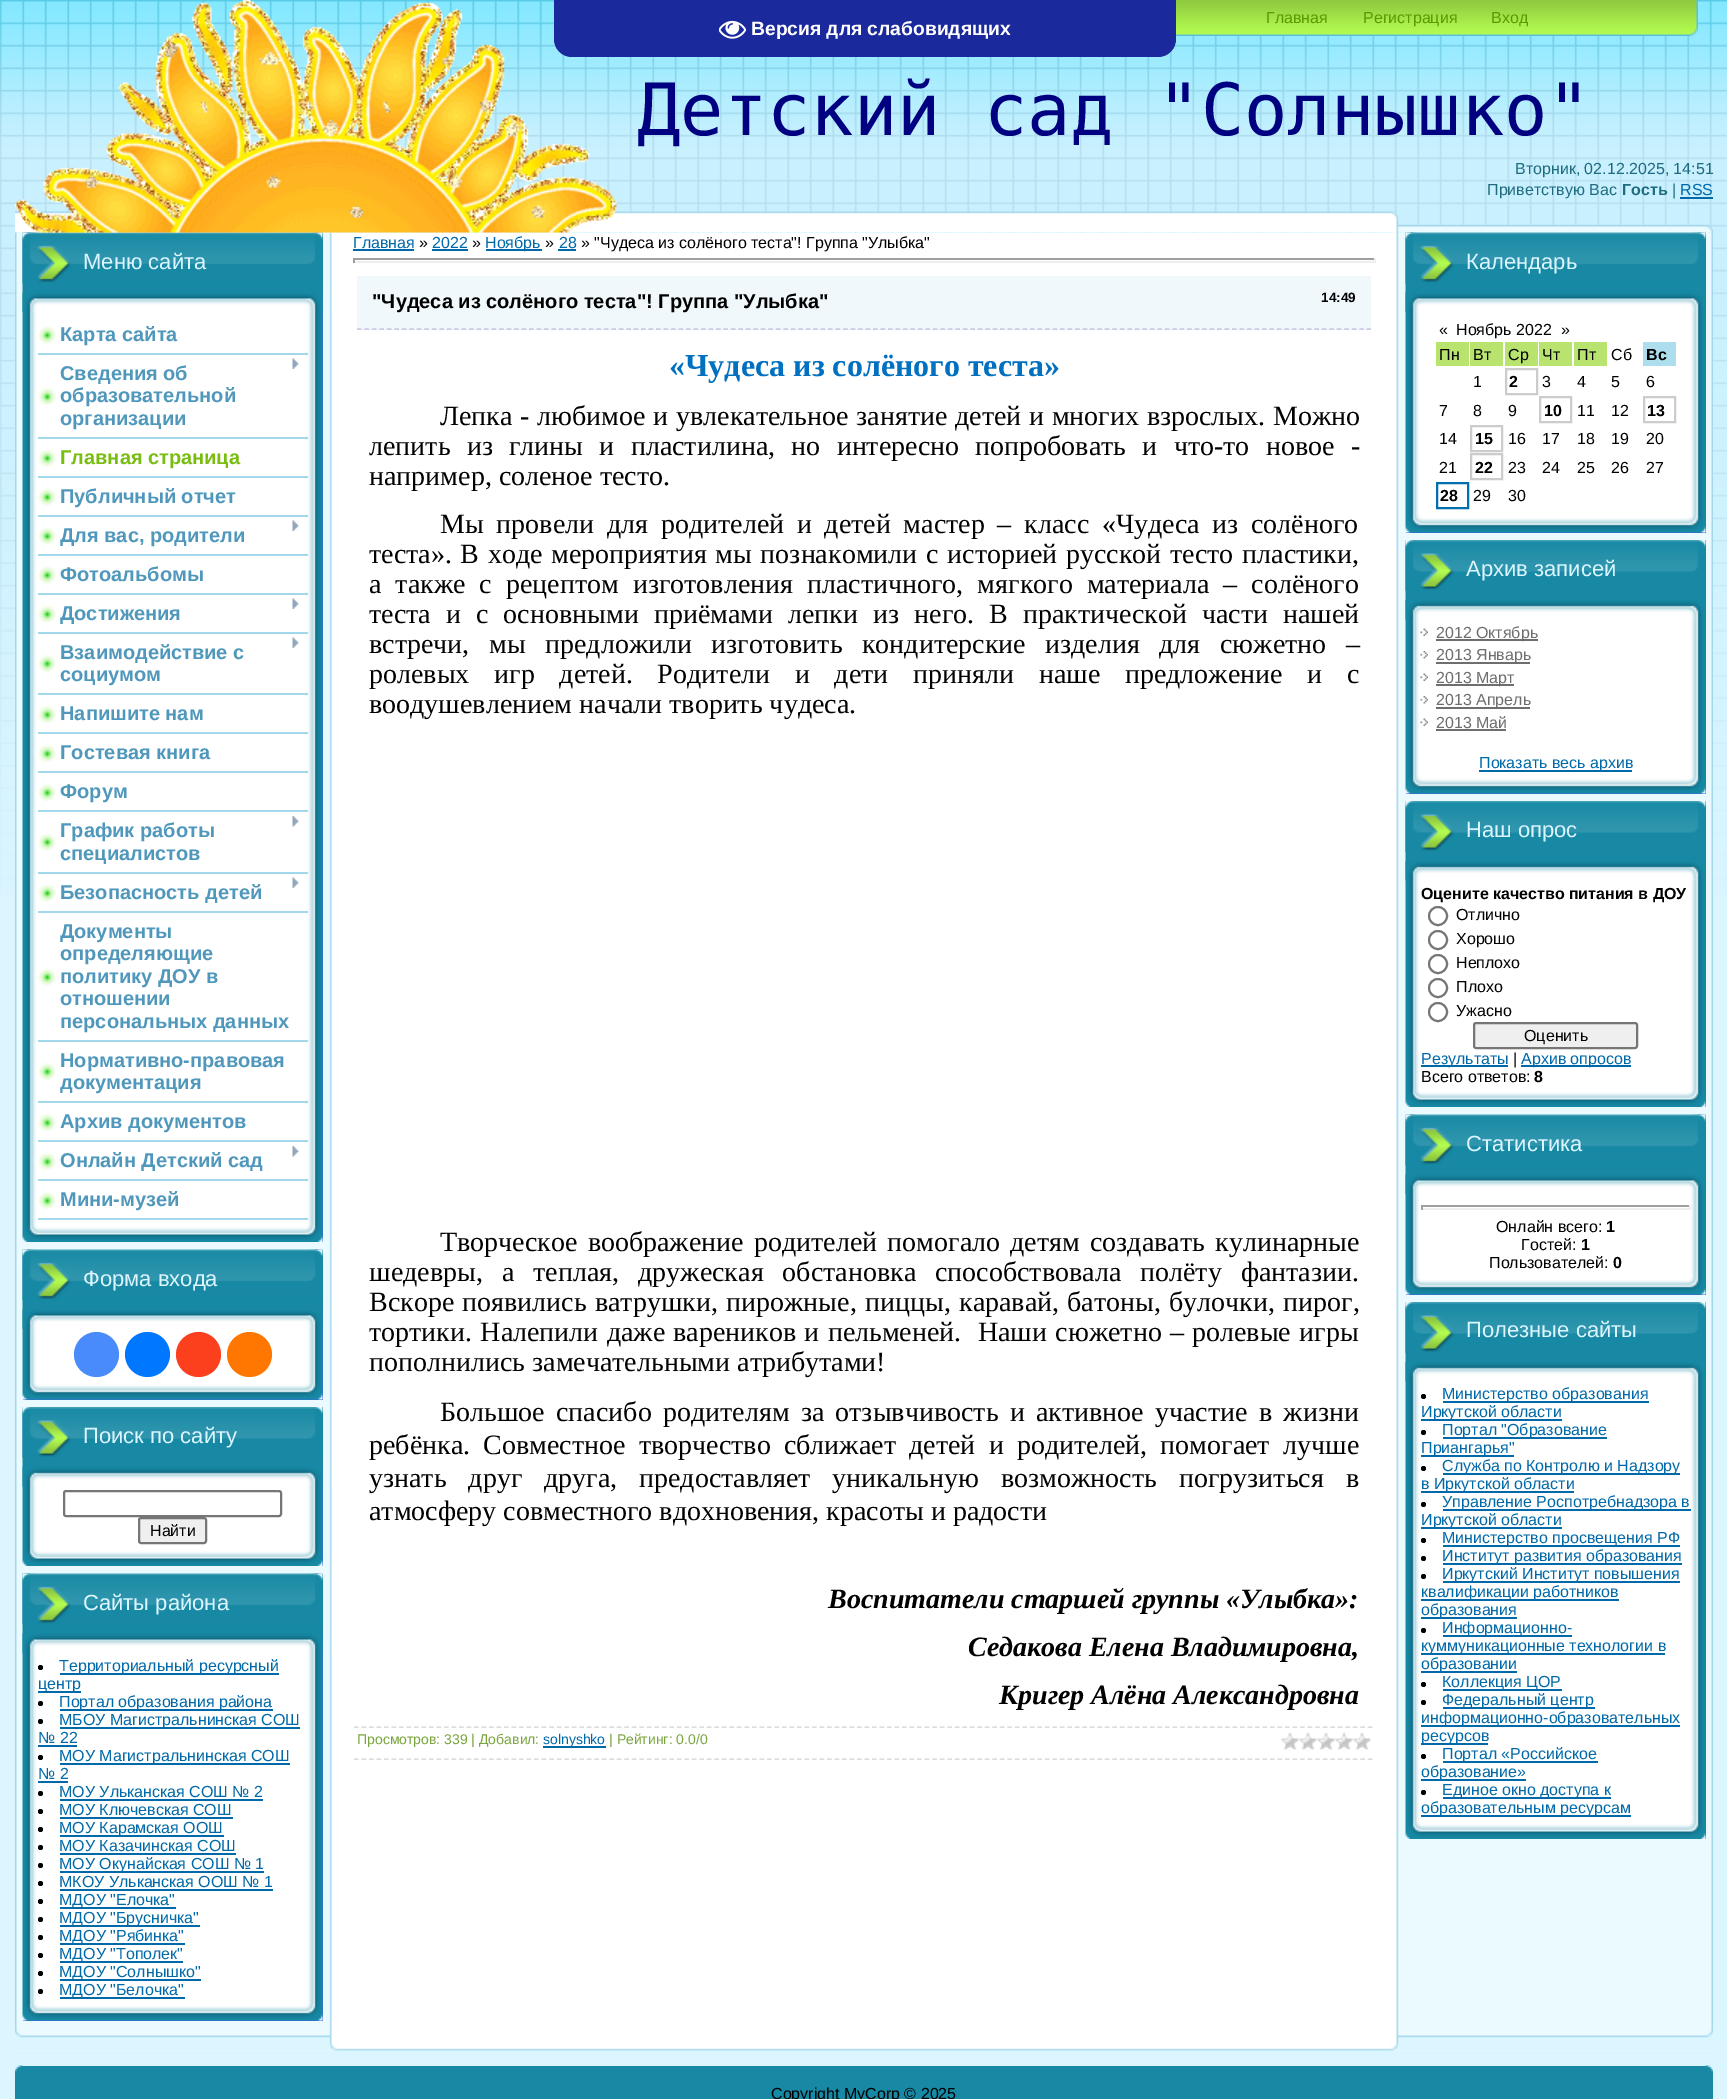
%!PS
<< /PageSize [1727 2099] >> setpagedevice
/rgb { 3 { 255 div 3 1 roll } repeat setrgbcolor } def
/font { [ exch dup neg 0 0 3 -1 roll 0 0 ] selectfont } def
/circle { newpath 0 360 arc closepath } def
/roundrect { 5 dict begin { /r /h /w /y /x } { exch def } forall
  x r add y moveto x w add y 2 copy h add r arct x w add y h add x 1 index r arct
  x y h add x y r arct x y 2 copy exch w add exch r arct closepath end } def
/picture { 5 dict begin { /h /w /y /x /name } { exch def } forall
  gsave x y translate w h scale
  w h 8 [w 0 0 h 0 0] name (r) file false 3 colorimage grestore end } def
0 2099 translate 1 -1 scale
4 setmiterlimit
220 246 255 rgb
0 0 1727 2099 rectfill
(img/1.rgb) 0 0 1727 896 picture
(img/2.rgb) 15 211 1698 22 picture
235 250 255 rgb
15 233 1698 1818 rectfill
(img/5.rgb) 15 232 323 1796 picture
65 105 225 rgb
322 293 1 949 rectfill
(img/6.rgb) 22 232 301 1010 picture
23 137 164 rgb
24 233 299 60 rectfill
(img/7.rgb) 22 232 301 52 picture
(img/3.rgb) 15 0 602 233 picture
(img/4.rgb) 1176 0 522 36 picture
0 105 169 rgb
1680 197 33 2 rectfill
(img/8.rgb) 22 292 301 20 picture
(img/9.rgb) 38 326 18 18 picture
162 215 236 rgb
38 353 270 2 rectfill
(img/10.rgb) 38 387 18 18 picture
38 437 270 2 rectfill
(img/11.rgb) 292 358 7 11 picture
(img/9.rgb) 38 449 18 18 picture
38 476 270 2 rectfill
(img/9.rgb) 38 488 18 18 picture
38 515 270 2 rectfill
(img/9.rgb) 38 527 18 18 picture
38 554 270 2 rectfill
(img/11.rgb) 292 520 7 11 picture
(img/9.rgb) 38 566 18 18 picture
38 593 270 2 rectfill
(img/9.rgb) 38 605 18 18 picture
38 632 270 2 rectfill
(img/11.rgb) 292 598 7 11 picture
(img/10.rgb) 38 654 18 18 picture
38 693 270 2 rectfill
(img/11.rgb) 292 637 7 11 picture
(img/10.rgb) 38 705 18 18 picture
38 732 270 2 rectfill
(img/10.rgb) 38 744 18 18 picture
38 771 270 2 rectfill
(img/10.rgb) 38 783 18 18 picture
38 810 270 2 rectfill
(img/9.rgb) 38 833 18 18 picture
38 872 270 2 rectfill
(img/12.rgb) 292 816 7 11 picture
(img/9.rgb) 38 884 18 18 picture
38 911 270 2 rectfill
(img/11.rgb) 292 877 7 11 picture
(img/9.rgb) 38 968 18 18 picture
38 1040 270 2 rectfill
(img/10.rgb) 38 1062 18 18 picture
38 1101 270 2 rectfill
(img/10.rgb) 38 1113 18 18 picture
38 1140 270 2 rectfill
(img/10.rgb) 38 1152 18 18 picture
38 1179 270 2 rectfill
(img/12.rgb) 292 1146 7 11 picture
(img/10.rgb) 38 1191 18 18 picture
38 1218 270 2 rectfill
65 105 225 rgb
23 1310 300 90 rectfill
(img/13.rgb) 22 1249 301 151 picture
23 137 164 rgb
24 1250 299 60 rectfill
(img/14.rgb) 22 1249 301 52 picture
(img/8.rgb) 22 1309 301 20 picture
73 139 250 rgb
96.5 1354.5 22.5 circle fill
0 119 255 rgb
147.5 1354.5 22.5 circle fill
252 63 29 rgb
198.5 1354.5 22.5 circle fill
255 119 0 rgb
249.5 1354.5 22.5 circle fill
65 105 225 rgb
322 1467 1 99 rectfill
(img/15.rgb) 22 1407 301 159 picture
23 137 164 rgb
24 1407 299 60 rectfill
(img/16.rgb) 22 1407 301 51 picture
(img/17.rgb) 22 1467 301 20 picture
118 118 118 rgb
2 setlinewidth
64 1491 217 25 2 roundrect stroke
239 239 239 rgb
139 1518 67 25 2 roundrect gsave fill grestore
118 118 118 rgb
stroke
65 105 225 rgb
23 1634 300 387 rectfill
(img/18.rgb) 22 1573 301 448 picture
23 137 164 rgb
24 1574 299 60 rectfill
(img/14.rgb) 22 1573 301 52 picture
(img/8.rgb) 22 1633 301 20 picture
0 0 0 rgb
40.5 1667.5 2.5 circle fill
0 105 169 rgb
60 1673 219 2 rectfill
38 1691 43 2 rectfill
0 0 0 rgb
40.5 1703.5 2.5 circle fill
0 105 169 rgb
60 1709 213 2 rectfill
0 0 0 rgb
40.5 1721.5 2.5 circle fill
0 105 169 rgb
60 1727 240 2 rectfill
38 1745 39 2 rectfill
0 0 0 rgb
40.5 1757.5 2.5 circle fill
0 105 169 rgb
60 1763 230 2 rectfill
38 1781 30 2 rectfill
0 0 0 rgb
40.5 1793.5 2.5 circle fill
0 105 169 rgb
60 1799 203 2 rectfill
0 0 0 rgb
40.5 1811.5 2.5 circle fill
0 105 169 rgb
60 1817 173 2 rectfill
0 0 0 rgb
40.5 1829.5 2.5 circle fill
0 105 169 rgb
60 1835 164 2 rectfill
0 0 0 rgb
40.5 1847.5 2.5 circle fill
0 105 169 rgb
60 1853 176 2 rectfill
0 0 0 rgb
40.5 1865.5 2.5 circle fill
0 105 169 rgb
60 1871 204 2 rectfill
0 0 0 rgb
40.5 1883.5 2.5 circle fill
0 105 169 rgb
60 1889 213 2 rectfill
0 0 0 rgb
40.5 1901.5 2.5 circle fill
0 105 169 rgb
60 1907 116 2 rectfill
0 0 0 rgb
40.5 1919.5 2.5 circle fill
0 105 169 rgb
60 1925 140 2 rectfill
0 0 0 rgb
40.5 1937.5 2.5 circle fill
0 105 169 rgb
60 1943 125 2 rectfill
0 0 0 rgb
40.5 1955.5 2.5 circle fill
0 105 169 rgb
60 1961 123 2 rectfill
0 0 0 rgb
40.5 1973.5 2.5 circle fill
0 105 169 rgb
60 1979 141 2 rectfill
0 0 0 rgb
40.5 1991.5 2.5 circle fill
[
  [60 1997 125 2 0 105 169]
  [338 233 1053 1795 255 255 255]
  [353 249 61 2 0 105 169]
  [432 249 36 2 0 105 169]
  [486 249 56 2 0 105 169]
  [558 249 18 2 0 105 169]
  [353 258 1023 2 159 159 159]
  [1374 258 2 5 238 238 238]
  [353 261 1023 2 238 238 238]
  [353 258 2 5 159 159 159]
  [357 276 1014 54 241 248 251]
] { aload pop rgb rectfill } forall
203 203 230 rgb
1.5 setlinewidth
[4.5 2.98] 0 setdash
357 329 moveto 1371 329 lineto stroke
221 221 221 rgb
[4.5 3.01] 0 setdash
354 1727 moveto 1374 1727 lineto stroke
354 1759 moveto 1374 1759 lineto stroke
0 105 169 rgb
543 1746 63 2 rectfill
(img/19.rgb) 1281 1732 90 19 picture
(img/20.rgb) 1390 232 323 1796 picture
65 105 225 rgb
1406 293 300 240 rectfill
(img/21.rgb) 1405 232 301 301 picture
23 137 164 rgb
1407 233 299 60 rectfill
(img/22.rgb) 1405 232 301 52 picture
(img/23.rgb) 1405 292 301 20 picture
[
  [1436 342 33 24 183 227 110]
  [1470 342 33 24 183 227 110]
  [1505 342 33 24 183 227 110]
  [1539 342 33 24 183 227 110]
  [1574 342 33 24 183 227 110]
  [1643 342 33 24 172 222 238]
] { aload pop rgb rectfill } forall
204 204 204 rgb
2 setlinewidth
[] 0 setdash
1506 369 31 25 rectstroke
1540 397 31 25 rectstroke
1644 397 31 25 rectstroke
1471 426 31 25 rectstroke
1471 454 31 25 rectstroke
1 110 173 rgb
1437 483 31 25 rectstroke
65 105 225 rgb
1406 600 300 194 rectfill
(img/24.rgb) 1405 540 301 254 picture
23 137 164 rgb
1407 540 299 60 rectfill
(img/25.rgb) 1405 540 301 51 picture
(img/26.rgb) 1405 600 301 20 picture
(img/27.rgb) 1420 628 8 8 picture
110 110 110 rgb
1436 639 102 2 rectfill
(img/28.rgb) 1420 651 8 8 picture
1436 662 94 2 rectfill
(img/27.rgb) 1420 673 8 8 picture
1436 684 78 2 rectfill
(img/28.rgb) 1420 696 8 8 picture
1436 707 94 2 rectfill
(img/27.rgb) 1420 718 8 8 picture
[
  [1436 729 70 2 110 110 110]
  [1479 770 153 2 0 105 169]
  [1705 861 1 246 65 105 225]
] { aload pop rgb rectfill } forall
(img/29.rgb) 1405 801 301 306 picture
23 137 164 rgb
1407 801 299 60 rectfill
(img/25.rgb) 1405 801 301 51 picture
(img/26.rgb) 1405 861 301 20 picture
118 118 118 rgb
1438 916 9 circle stroke
1438 940 9 circle stroke
1438 964 9 circle stroke
1438 988 9 circle stroke
1438 1012 9 circle stroke
239 239 239 rgb
1474 1023 163 25 2 roundrect gsave fill grestore
118 118 118 rgb
stroke
[
  [1421 1065 87 2 0 105 169]
  [1521 1065 110 2 0 105 169]
  [1406 1175 300 120 65 105 225]
] { aload pop rgb rectfill } forall
(img/30.rgb) 1405 1114 301 181 picture
23 137 164 rgb
1407 1115 299 60 rectfill
(img/31.rgb) 1405 1114 301 52 picture
(img/23.rgb) 1405 1174 301 20 picture
[
  [1421 1205 270 2 159 159 159]
  [1689 1205 2 5 238 238 238]
  [1421 1208 270 2 238 238 238]
  [1421 1205 2 5 159 159 159]
  [1705 1362 1 477 65 105 225]
] { aload pop rgb rectfill } forall
(img/32.rgb) 1405 1302 301 537 picture
23 137 164 rgb
1407 1302 299 60 rectfill
(img/25.rgb) 1405 1302 301 51 picture
(img/26.rgb) 1405 1362 301 20 picture
0 0 0 rgb
1423.5 1396.5 2.5 circle fill
0 105 169 rgb
1443 1401 206 2 rectfill
1421 1419 141 2 rectfill
0 0 0 rgb
1423.5 1432.5 2.5 circle fill
0 105 169 rgb
1443 1437 164 2 rectfill
1421 1455 93 2 rectfill
0 0 0 rgb
1423.5 1468.5 2.5 circle fill
0 105 169 rgb
1443 1473 237 2 rectfill
1421 1491 153 2 rectfill
0 0 0 rgb
1423.5 1504.5 2.5 circle fill
0 105 169 rgb
1443 1509 248 2 rectfill
1421 1527 141 2 rectfill
0 0 0 rgb
1423.5 1540.5 2.5 circle fill
0 105 169 rgb
1443 1545 237 2 rectfill
0 0 0 rgb
1423.5 1558.5 2.5 circle fill
0 105 169 rgb
1443 1563 239 2 rectfill
0 0 0 rgb
1423.5 1576.5 2.5 circle fill
[
  [1443 1581 237 2 0 105 169]
  [1421 1599 198 2 0 105 169]
  [1421 1617 96 2 0 105 169]
] { aload pop rgb rectfill } forall
0 0 0 rgb
1423.5 1630.5 2.5 circle fill
[
  [1443 1635 129 2 0 105 169]
  [1421 1653 244 2 0 105 169]
  [1421 1671 96 2 0 105 169]
] { aload pop rgb rectfill } forall
0 0 0 rgb
1423.5 1684.5 2.5 circle fill
0 105 169 rgb
1443 1689 119 2 rectfill
0 0 0 rgb
1423.5 1702.5 2.5 circle fill
[
  [1443 1707 152 2 0 105 169]
  [1421 1725 259 2 0 105 169]
  [1421 1743 67 2 0 105 169]
] { aload pop rgb rectfill } forall
0 0 0 rgb
1423.5 1756.5 2.5 circle fill
0 105 169 rgb
1443 1761 155 2 rectfill
1421 1779 105 2 rectfill
0 0 0 rgb
1423.5 1792.5 2.5 circle fill
0 105 169 rgb
1443 1797 168 2 rectfill
1421 1815 210 2 rectfill
(img/33.rgb) 15 2028 323 23 picture
(img/34.rgb) 337 2028 1054 23 picture
(img/35.rgb) 1390 2028 323 23 picture
23 137 164 rgb
15 2066 1698 33 rectfill
(img/36.rgb) 15 2065 8 8 picture
(img/37.rgb) 1705 2065 8 8 picture
26 41 156 rgb
554 0 moveto 1176 0 lineto 1176 39 lineto 1176 49 1168 57 1158 57 curveto 572 57 lineto 562 57 554 49 554 39 curveto closepath fill
(img/38.rgb) 719 20 27 19 picture
/LiberationSans-Regular 16 font
89 155 0 rgb
[
  [(Главная) 1266 23]
  [(Регистрация) 1363 23]
  [(Вход) 1491 23]
] { aload pop moveto show } forall
/DejaVuSansMono-Regular 72 font
0 0 128 rgb
637 135 moveto (Детский сад "Солнышко") show
/LiberationSans-Regular 16 font
31 108 127 rgb
1515 174 moveto (Вторник, 02.12.2025, 14:51) show
1487 195 moveto (Приветствую Вас) show
/LiberationSans-Bold 16 font
1622 195 moveto (Гость) show
/LiberationSans-Regular 16 font
1672 195 moveto (|) show
0 105 169 rgb
1680 195 moveto (RSS) show
/LiberationSans-Regular 22 font
220 246 255 rgb
83 269 moveto (Меню сайта) show
/LiberationSans-Bold 20 font
79 152 188 rgb
[
  [(Карта сайта) 60 341]
  [(Сведения об) 60 380]
  [(образовательной) 60 402]
  [(организации) 60 425]
] { aload pop moveto show } forall
121 189 17 rgb
60 464 moveto (Главная страница) show
79 152 188 rgb
[
  [(Публичный отчет) 60 503]
  [(Для вас, родители) 60 542]
  [(Фотоальбомы) 60 581]
  [(Достижения) 60 620]
  [(Взаимодействие с) 60 659]
  [(социумом) 60 681]
  [(Напишите нам) 60 720]
  [(Гостевая книга) 60 759]
  [(Форум) 60 798]
  [(График работы) 60 837]
  [(специалистов) 60 860]
  [(Безопасность детей) 60 899]
  [(Документы) 60 938]
  [(определяющие) 60 960]
  [(политику ДОУ в) 60 983]
  [(отношении) 60 1005]
  [(персональных данных) 60 1028]
  [(Нормативно-правовая) 60 1067]
  [(документация) 60 1089]
  [(Архив документов) 60 1128]
  [(Онлайн Детский сад) 60 1167]
  [(Мини-музей) 60 1206]
] { aload pop moveto show } forall
/LiberationSans-Regular 22 font
220 246 255 rgb
83 1286 moveto (Форма входа) show
83 1443 moveto (Поиск по сайту) show
/LiberationSans-Regular 16 font
0 0 0 rgb
150 1536 moveto (Найти) show
/LiberationSans-Regular 22 font
220 246 255 rgb
83 1610 moveto (Сайты района) show
/LiberationSans-Regular 16 font
0 105 169 rgb
[
  [(Территориальный ресурсный) 59 1671]
  [(центр) 38 1689]
  [(Портал образования района) 59 1707]
  [(МБОУ Магистральнинская СОШ) 59 1725]
  [(№ 22) 38 1743]
  [(МОУ Магистральнинская СОШ) 59 1761]
  [(№ 2) 38 1779]
  [(МОУ Ульканская СОШ № 2) 59 1797]
  [(МОУ Ключевская СОШ) 59 1815]
  [(МОУ Карамская ООШ) 59 1833]
  [(МОУ Казачинская СОШ) 59 1851]
  [(МОУ Окунайская СОШ № 1) 59 1869]
  [(МКОУ Ульканская ООШ № 1) 59 1887]
  [(МДОУ "Елочка") 59 1905]
  [(МДОУ "Брусничка") 59 1923]
  [(МДОУ "Рябинка") 59 1941]
  [(МДОУ "Тополек") 59 1959]
  [(МДОУ "Солнышко") 59 1977]
  [(МДОУ "Белочка") 59 1995]
  [(Главная) 353 248]
] { aload pop moveto show } forall
0 0 0 rgb
419 248 moveto (») show
0 105 169 rgb
432 248 moveto (2022) show
0 0 0 rgb
472 248 moveto (») show
0 105 169 rgb
485 248 moveto (Ноябрь) show
0 0 0 rgb
545 248 moveto (») show
0 105 169 rgb
559 248 moveto (28) show
0 0 0 rgb
581 248 moveto (» "Чудеса из солёного теста"! Группа "Улыбка") show
/LiberationSans-Bold 20 font
372 308 moveto ("Чудеса из солёного теста"! Группа "Улыбка") show
/LiberationSans-Bold 13.5 font
1321 302 moveto (14:49) show
/LiberationSerif-Bold 32 font
0 112 192 rgb
669 376 moveto («Чудеса из солёного теста») show
/LiberationSerif-Regular 28 font
0 0 0 rgb
440 425 moveto 0.75 0 32 (Лепка - любимое и увлекательное занятие детей и многих взрослых. Можно) widthshow
369 455 moveto 9.25 0 32 (лепить из глины и пластилина, но интересно попробовать и что-то новое -) widthshow
369 485 moveto (например, соленое тесто.) show
440 533 moveto 5.75 0 32 (Мы провели для родителей и детей мастер – класс «Чудеса из солёного) widthshow
369 563 moveto 1.75 0 32 (теста». В ходе мероприятия мы познакомили с историей русской тесто пластики,) widthshow
369 593 moveto 7 0 32 (а также с рецептом изготовления пластичного, мягкого материала – солёного) widthshow
369 623 moveto 8.1 0 32 (теста и с основными приёмами лепки из него. В практической части нашей) widthshow
369 653 moveto 12.5 0 32 (встречи, мы предложили изготовить кондитерские изделия для сюжетно –) widthshow
369 683 moveto 17.75 0 32 (ролевых игр детей. Родители и дети приняли наше предложение и с) widthshow
369 713 moveto (воодушевлением начали творить чудеса.) show
440 1251 moveto 3.25 0 32 (Творческое воображение родителей помогало детям создавать кулинарные) widthshow
369 1281 moveto 12 0 32 (шедевры, а теплая, дружеская обстановка способствовала полёту фантазии.) widthshow
369 1311 moveto 1.25 0 32 (Вскоре появились ватрушки, пирожные, пиццы, каравай, батоны, булочки, пирог,) widthshow
369 1341 moveto 1.25 0 32 (тортики. Налепили даже вареников и пельменей.  Наши сюжетно – ролевые игры) widthshow
369 1371 moveto (пополнились замечательными атрибутами!) show
440 1421 moveto 4.25 0 32 (Большое спасибо родителям за отзывчивость и активное участие в жизни) widthshow
369 1454 moveto 6.25 0 32 (ребёнка. Совместное творчество сближает детей и родителей, помогает лучше) widthshow
369 1487 moveto 15 0 32 (узнать друг друга,) widthshow
639 1487 moveto 15 0 32 (предоставляет уникальную возможность погрузиться в) widthshow
369 1520 moveto (атмосферу совместного вдохновения, красоты и радости) show
/LiberationSerif-BoldItalic 28 font
[
  [(Воспитатели старшей группы «Улыбка»:) 828 1608]
  [(Седакова Елена Владимировна,) 968 1656]
  [(Кригер Алёна Александровна) 999 1704]
] { aload pop moveto show } forall
/LiberationSans-Regular 14 font
121 165 61 rgb
357 1744 moveto (Просмотров: 339 | Добавил:) show
0 105 169 rgb
543 1744 moveto (solnyshko) show
121 165 61 rgb
609 1744 moveto (| Рейтинг: 0.0/0) show
/LiberationSans-Regular 22 font
220 246 255 rgb
1466 269 moveto (Календарь) show
/LiberationSans-Regular 16 font
0 0 0 rgb
[
  [(«) 1439 335]
  [(Ноябрь 2022) 1456 335]
  [(») 1561 335]
  [(Пн) 1439 360]
  [(Вт) 1473 360]
  [(Ср) 1508 360]
  [(Чт) 1542 360]
  [(Пт) 1577 360]
  [(Сб) 1611 360]
] { aload pop moveto show } forall
/LiberationSans-Bold 16 font
1646 360 moveto (Вс) show
/LiberationSans-Regular 16 font
1473 387 moveto (1) show
/LiberationSans-Bold 16 font
1509 387 moveto (2) show
/LiberationSans-Regular 16 font
[
  [(3) 1542 387]
  [(4) 1577 387]
  [(5) 1611 387]
  [(6) 1646 387]
  [(7) 1439 416]
  [(8) 1473 416]
  [(9) 1508 416]
] { aload pop moveto show } forall
/LiberationSans-Bold 16 font
1544 416 moveto (10) show
/LiberationSans-Regular 16 font
1577 416 moveto (11) show
1611 416 moveto (12) show
/LiberationSans-Bold 16 font
1647 416 moveto (13) show
/LiberationSans-Regular 16 font
1439 444 moveto (14) show
/LiberationSans-Bold 16 font
1475 444 moveto (15) show
/LiberationSans-Regular 16 font
[
  [(16) 1508 444]
  [(17) 1542 444]
  [(18) 1577 444]
  [(19) 1611 444]
  [(20) 1646 444]
  [(21) 1439 473]
] { aload pop moveto show } forall
/LiberationSans-Bold 16 font
1475 473 moveto (22) show
/LiberationSans-Regular 16 font
[
  [(23) 1508 473]
  [(24) 1542 473]
  [(25) 1577 473]
  [(26) 1611 473]
  [(27) 1646 473]
] { aload pop moveto show } forall
/LiberationSans-Bold 16 font
1440 501 moveto (28) show
/LiberationSans-Regular 16 font
1473 501 moveto (29) show
1508 501 moveto (30) show
/LiberationSans-Regular 22 font
220 246 255 rgb
1466 576 moveto (Архив записей) show
/LiberationSans-Regular 16 font
110 110 110 rgb
[
  [(2012 Октябрь) 1436 638]
  [(2013 Январь) 1436 660]
  [(2013 Март) 1436 683]
  [(2013 Апрель) 1436 705]
  [(2013 Май) 1436 728]
] { aload pop moveto show } forall
0 105 169 rgb
1479 768 moveto (Показать весь архив) show
/LiberationSans-Regular 22 font
220 246 255 rgb
1466 837 moveto (Наш опрос) show
/LiberationSans-Bold 16 font
0 0 0 rgb
1421 899 moveto (Оцените качество питания в ДОУ) show
/LiberationSans-Regular 16 font
[
  [(Отлично) 1456 920]
  [(Хорошо) 1456 944]
  [(Неплохо) 1456 968]
  [(Плохо) 1456 992]
  [(Ужасно) 1456 1016]
  [(Оценить) 1524 1041]
] { aload pop moveto show } forall
0 105 169 rgb
1421 1064 moveto (Результаты) show
0 0 0 rgb
1513 1064 moveto (|) show
0 105 169 rgb
1521 1064 moveto (Архив опросов) show
0 0 0 rgb
1421 1082 moveto (Всего ответов:) show
/LiberationSans-Bold 16 font
1534 1082 moveto (8) show
/LiberationSans-Regular 22 font
220 246 255 rgb
1466 1151 moveto (Статистика) show
/LiberationSans-Regular 16 font
0 0 0 rgb
1496 1232 moveto (Онлайн всего:) show
/LiberationSans-Bold 16 font
1606 1232 moveto (1) show
/LiberationSans-Regular 16 font
1521 1250 moveto (Гостей:) show
/LiberationSans-Bold 16 font
1581 1250 moveto (1) show
/LiberationSans-Regular 16 font
1489 1268 moveto (Пользователей:) show
/LiberationSans-Bold 16 font
1613 1268 moveto (0) show
/LiberationSans-Regular 22 font
220 246 255 rgb
1466 1337 moveto (Полезные сайты) show
/LiberationSans-Regular 16 font
0 105 169 rgb
[
  [(Министерство образования) 1442 1399]
  [(Иркутской области) 1421 1417]
  [(Портал "Образование) 1442 1435]
  [(Приангарья") 1421 1453]
  [(Служба по Контролю и Надзору) 1442 1471]
  [(в Иркутской области) 1421 1489]
  [(Управление Роспотребнадзора в) 1442 1507]
  [(Иркутской области) 1421 1525]
  [(Министерство просвещения РФ) 1442 1543]
  [(Институт развития образования) 1442 1561]
  [(Иркутский Институт повышения) 1442 1579]
  [(квалификации работников) 1421 1597]
  [(образования) 1421 1615]
  [(Информационно-) 1442 1633]
  [(куммуникационные технологии в) 1421 1651]
  [(образовании) 1421 1669]
  [(Коллекция ЦОР) 1442 1687]
  [(Федеральный центр) 1442 1705]
  [(информационно-образовательных) 1421 1723]
  [(ресурсов) 1421 1741]
  [(Портал «Российское) 1442 1759]
  [(образование») 1421 1777]
  [(Единое окно доступа к) 1442 1795]
  [(образовательным ресурсам) 1421 1813]
] { aload pop moveto show } forall
0 0 0 rgb
771 2099 moveto (Copyright MyCorp © 2025) show
/LiberationSans-Bold 19.25 font
255 255 255 rgb
751 35 moveto (Версия для слабовидящих) show
showpage
